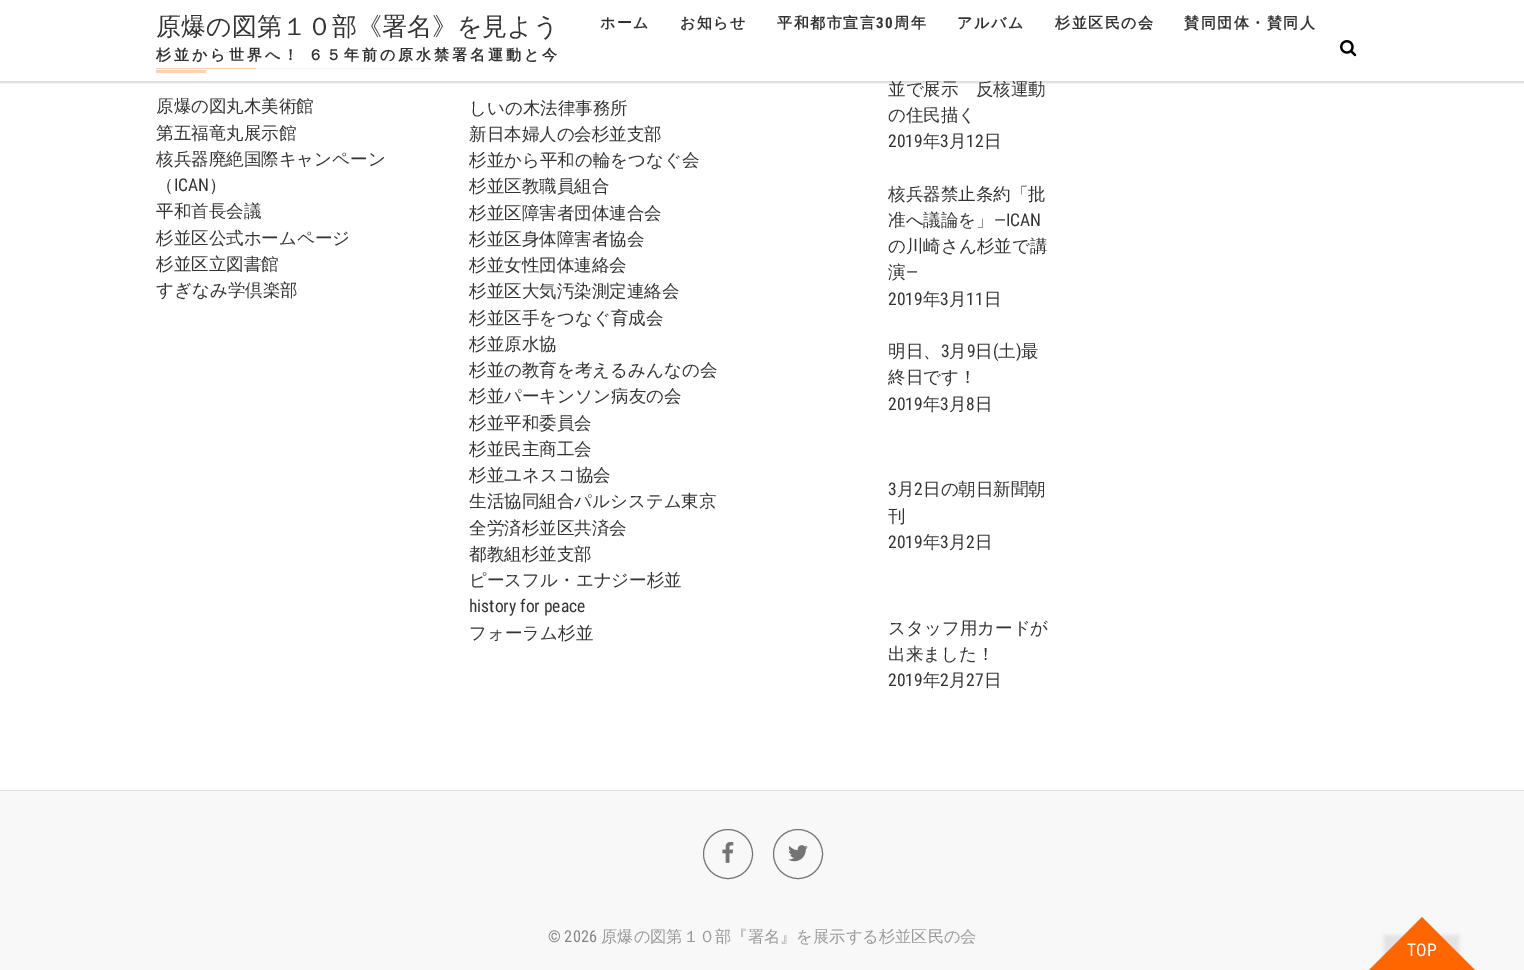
%!PS
<< /PageSize [1524 970] /PageUsesTransparency true >> setpagedevice
/rgb { 3 { 255 div 3 1 roll } repeat setrgbcolor } def
/font { [ exch dup neg 0 0 3 -1 roll 0 0 ] selectfont } def
/alpha { dup .setfillconstantalpha .setstrokeconstantalpha } def
/circle { newpath 0 360 arc closepath } def
/roundrect { 5 dict begin { /r /h /w /y /x } { exch def } forall
  x r add y moveto x w add y 2 copy h add r arct x w add y h add x 1 index r arct
  x y h add x y r arct x y 2 copy exch w add exch r arct closepath end } def
/shadow { 12 dict begin { /a /b /q /h /w /y /x } { exch def } forall gsave /was 0 def
  9 -2 -9 { dup b mul 4 div /e exch def 1 sub .425 mul 2.718 exch exp 1 add a .99 .min exch div /now exch def
    1 1 now sub 1 was sub div sub alpha /was now def
    w h .min e 2 mul add 0 gt { x e sub y e sub w e 2 mul add h e 2 mul add
      q e add b .6 mul add w h .min 2 div e add .min 0 .max roundrect fill } if } for grestore end } def
/picture { 5 dict begin { /h /w /y /x /name } { exch def } forall
  gsave x y translate w h scale
  w h 8 [w 0 0 h 0 0] name (r) file false 3 colorimage grestore end } def
0 .pushpdf14devicefilter
0 970 translate 1 -1 scale
4 setmiterlimit
255 255 255 rgb
0 0 1524 970 rectfill
[
  [256 68 175 1 217 217 217]
  [156 68 100 1 255 102 0]
  [156 70 50 3 255 102 0]
] { aload pop rgb rectfill } forall
gsave
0 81 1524 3 rectclip
0 0 0 rgb
0 1 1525 82 0 1 0.15 shadow
grestore
(img/1.rgb) 1340 40 17 17 picture
248 248 248 rgb
0 791 1524 179 rectfill
223 223 223 rgb
0 790 1524 1 rectfill
116 116 116 rgb
728 854 24.5 circle stroke
(img/2.rgb) 722 842 12 21 picture
798 854 24.5 circle stroke
(img/3.rgb) 788 845 20 17 picture
0 0 0 rgb
1384 935 75 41 0 2 0.08 shadow
255 102 0 rgb
1422 917 moveto 1475 970 lineto 1422 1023 lineto 1369 970 lineto closepath fill
/WenQuanYiZenHei-Medium 25 font
51 51 51 rgb
156 35 moveto (原爆の図第１０部《署名》を見よう) show
/WenQuanYiZenHei-Bold 15 font
156 60 moveto -1 0 32 3 0 (杉並から世界へ！ ６５年前の原水禁署名運動と今) awidthshow
600 28 moveto 1.5 0 (ホーム) ashow
680 28 moveto 1.5 0 (お知らせ) ashow
777 28 moveto 1.5 0 (平和都市宣言) ashow
/RobotoCondensed-Bold 15 font
876 28 moveto 1.5 0 (30) ashow
/WenQuanYiZenHei-Bold 15 font
894 28 moveto 1.5 0 (周年) ashow
957 28 moveto 1.5 0 (アルバム) ashow
1055 28 moveto 1.5 0 (杉並区民の会) ashow
1184 28 moveto 1.5 0 (賛同団体・賛同人) ashow
/WenQuanYiZenHei-Medium 17.5 font
[
  [(原爆の図丸木美術館) 156 112]
  [(第五福竜丸展示館) 156 139]
  [(核兵器廃絶国際キャンペーン) 156 165]
  [(（) 156 191]
] { aload pop moveto show } forall
/RobotoCondensed-Regular 17.5 font
174 191 moveto (ICAN) show
/WenQuanYiZenHei-Medium 17.5 font
[
  [(）) 209 191]
  [(平和首長会議) 156 217]
  [(杉並区公式ホームページ) 156 244]
  [(杉並区立図書館) 156 270]
  [(すぎなみ学倶楽部) 156 296]
  [(しいの木法律事務所) 469 114]
  [(新日本婦人の会杉並支部) 469 140]
  [(杉並から平和の輪をつなぐ会) 469 166]
  [(杉並区教職員組合) 469 192]
  [(杉並区障害者団体連合会) 469 219]
  [(杉並区身体障害者協会) 469 245]
  [(杉並女性団体連絡会) 469 271]
  [(杉並区大気汚染測定連絡会) 469 297]
  [(杉並区手をつなぐ育成会) 469 324]
  [(杉並原水協) 469 350]
  [(杉並の教育を考えるみんなの会) 469 376]
  [(杉並パーキンソン病友の会) 469 402]
  [(杉並平和委員会) 469 429]
  [(杉並民主商工会) 469 455]
  [(杉並ユネスコ協会) 469 481]
  [(生活協同組合パルシステム東京) 469 507]
  [(全労済杉並区共済会) 469 534]
  [(都教組杉並支部) 469 560]
  [(ピースフル・エナジー杉並) 469 586]
] { aload pop moveto show } forall
/RobotoCondensed-Regular 17.5 font
469 612 moveto (history for peace) show
/WenQuanYiZenHei-Medium 17.5 font
469 639 moveto (フォーラム杉並) show
888 95 moveto (並で展示　反核運動) show
0.7 alpha
255 255 255 rgb
156 68 858 13 rectfill
1 alpha
51 51 51 rgb
888 121 moveto (の住民描く) show
/RobotoCondensed-Regular 17.5 font
888 147 moveto (2019) show
/WenQuanYiZenHei-Medium 17.5 font
923 147 moveto (年) show
/RobotoCondensed-Regular 17.5 font
940 147 moveto (3) show
/WenQuanYiZenHei-Medium 17.5 font
949 147 moveto (月) show
/RobotoCondensed-Regular 17.5 font
966 147 moveto (12) show
/WenQuanYiZenHei-Medium 17.5 font
[
  [(日) 984 147]
  [(核兵器禁止条約「批) 888 200]
  [(准へ議論を」) 888 226]
] { aload pop moveto show } forall
/RobotoCondensed-Regular 17.5 font
994 226 moveto (—ICAN) show
/WenQuanYiZenHei-Medium 17.5 font
888 252 moveto (の川崎さん杉並で講) show
888 278 moveto (演) show
/RobotoCondensed-Regular 17.5 font
906 278 moveto (—) show
888 305 moveto (2019) show
/WenQuanYiZenHei-Medium 17.5 font
923 305 moveto (年) show
/RobotoCondensed-Regular 17.5 font
940 305 moveto (3) show
/WenQuanYiZenHei-Medium 17.5 font
949 305 moveto (月) show
/RobotoCondensed-Regular 17.5 font
966 305 moveto (11) show
/WenQuanYiZenHei-Medium 17.5 font
[
  [(日) 984 305]
  [(明日、) 888 357]
  [(月) 949 357]
  [(日 土) 975 357]
] { aload pop moveto show } forall
/RobotoCondensed-Regular 17.5 font
[
  [(3) 941 357]
  [(9) 967 357]
  [(\() 993 357]
  [(\)) 1016 357]
] { aload pop moveto show } forall
/WenQuanYiZenHei-Medium 17.5 font
1021 357 moveto (最) show
888 383 moveto (終日です！) show
/RobotoCondensed-Regular 17.5 font
888 410 moveto (2019) show
/WenQuanYiZenHei-Medium 17.5 font
923 410 moveto (年) show
/RobotoCondensed-Regular 17.5 font
940 410 moveto (3) show
/WenQuanYiZenHei-Medium 17.5 font
949 410 moveto (月) show
/RobotoCondensed-Regular 17.5 font
966 410 moveto (8) show
/WenQuanYiZenHei-Medium 17.5 font
975 410 moveto (日) show
/RobotoCondensed-Regular 17.5 font
888 495 moveto (3) show
/WenQuanYiZenHei-Medium 17.5 font
897 495 moveto (月) show
/RobotoCondensed-Regular 17.5 font
914 495 moveto (2) show
/WenQuanYiZenHei-Medium 17.5 font
923 495 moveto (日の朝日新聞朝) show
888 522 moveto (刊) show
/RobotoCondensed-Regular 17.5 font
888 548 moveto (2019) show
/WenQuanYiZenHei-Medium 17.5 font
923 548 moveto (年) show
/RobotoCondensed-Regular 17.5 font
940 548 moveto (3) show
/WenQuanYiZenHei-Medium 17.5 font
949 548 moveto (月) show
/RobotoCondensed-Regular 17.5 font
966 548 moveto (2) show
/WenQuanYiZenHei-Medium 17.5 font
[
  [(日) 975 548]
  [(スタッフ用カードが) 888 634]
  [(出来ました！) 888 660]
] { aload pop moveto show } forall
/RobotoCondensed-Regular 17.5 font
888 686 moveto (2019) show
/WenQuanYiZenHei-Medium 17.5 font
923 686 moveto (年) show
/RobotoCondensed-Regular 17.5 font
940 686 moveto (2) show
/WenQuanYiZenHei-Medium 17.5 font
949 686 moveto (月) show
/RobotoCondensed-Regular 17.5 font
966 686 moveto (27) show
/WenQuanYiZenHei-Medium 17.5 font
984 686 moveto (日) show
/RobotoCondensed-Regular 16.25 font
132 132 132 rgb
548 942 moveto (© 2026) show
/WenQuanYiZenHei-Medium 16.25 font
153 153 153 rgb
601 942 moveto (原爆の図第１０部『署名』を展示する杉並区民の会) show
/RobotoCondensed-Regular 17.5 font
255 255 255 rgb
1407 956 moveto (TOP) show
.poppdf14devicefilter showpage
